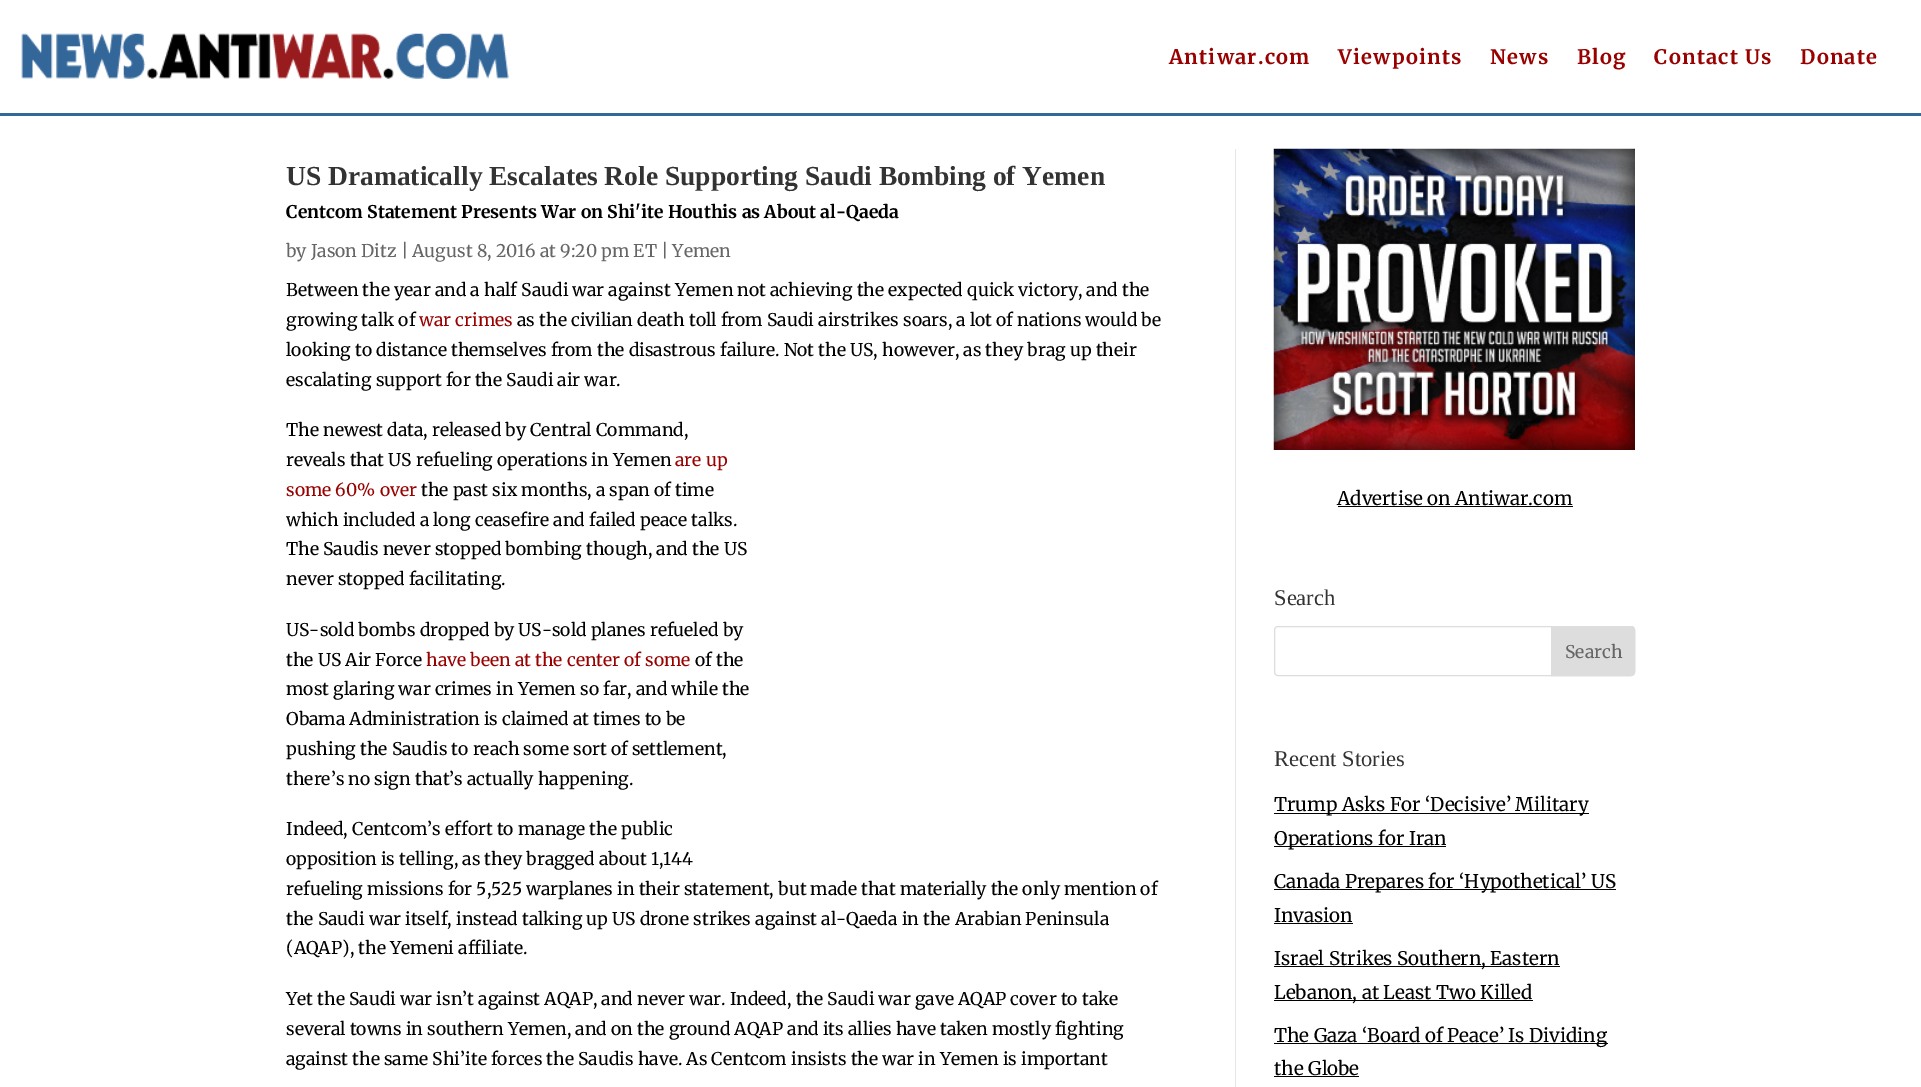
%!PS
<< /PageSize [1921 1087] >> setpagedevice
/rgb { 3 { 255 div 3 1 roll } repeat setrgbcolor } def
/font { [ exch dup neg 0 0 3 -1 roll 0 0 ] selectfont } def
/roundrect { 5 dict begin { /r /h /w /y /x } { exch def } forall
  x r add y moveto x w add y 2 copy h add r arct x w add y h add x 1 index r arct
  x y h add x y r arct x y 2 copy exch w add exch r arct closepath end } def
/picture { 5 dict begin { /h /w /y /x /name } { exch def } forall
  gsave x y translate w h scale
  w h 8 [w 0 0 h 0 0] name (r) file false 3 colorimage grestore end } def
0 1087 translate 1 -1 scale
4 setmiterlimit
255 255 255 rgb
0 0 1921 1087 rectfill
51 102 153 rgb
0 113 1921 3 rectfill
(img/1.rgb) 21 33 488 46 picture
230 230 230 rgb
1235 149 1 938 rectfill
(img/2.rgb) 1273 148 362 302 picture
0 0 0 rgb
1338 506 235 1 rectfill
221 221 221 rgb
1274.5 626.5 360 49 3.5 roundrect stroke
1551.5 626.5 moveto 1631 626.5 lineto 1633 626.5 1634.5 628 1634.5 630 curveto 1634.5 672 lineto 1634.5 674 1633 675.5 1631 675.5 curveto 1551.5 675.5 lineto closepath gsave fill grestore
stroke
[
  [1274 813 315 1 0 0 0]
  [1274 846 172 1 0 0 0]
  [1274 889 342 1 0 0 0]
  [1274 923 79 1 0 0 0]
  [1274 966 286 1 0 0 0]
  [1274 1000 259 1 0 0 0]
  [1274 1043 334 1 0 0 0]
  [1274 1076 85 1 0 0 0]
] { aload pop rgb rectfill } forall
/Merriweather-Light 20 font
153 0 0 rgb
1169 64 moveto 1.25 0 (Antiwar.com) ashow
1338 64 moveto 1.25 0 (Viewpoints) ashow
1490 64 moveto 1.25 0 (News) ashow
1577 64 moveto 1.25 0 (Blog) ashow
1654 64 moveto 1.25 0 (Contact Us) ashow
1800 64 moveto 1.25 0 (Donate) ashow
/LiberationSerif-Bold 27.5 font
51 51 51 rgb
286 185 moveto (US Dramatically Escalates Role Supporting Saudi Bombing of Yemen) show
/Merriweather-Light 17.5 font
0 0 0 rgb
286 218 moveto (Centcom Statement Presents War on Shi'ite Houthis as About al-Qaeda) show
/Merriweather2-Light 17.5 font
102 102 102 rgb
286 257 moveto (by Jason Ditz | August 8, 2016 at 9:20 pm ET | Yemen) show
0 0 0 rgb
286 296 moveto (Between the year and a half Saudi war against Yemen not achieving the expected quick victory, and the) show
286 326 moveto (growing talk of) show
153 0 0 rgb
419 326 moveto (war crimes) show
0 0 0 rgb
[
  [(as the civilian death toll from Saudi airstrikes soars, a lot of nations would be) 517 326]
  [(looking to distance themselves from the disastrous failure. Not the US, however, as they brag up their) 286 356]
  [(escalating support for the Saudi air war.) 286 386]
  [(The newest data, released by Central Command,) 286 436]
  [(reveals that US refueling operations in Yemen) 286 466]
] { aload pop moveto show } forall
153 0 0 rgb
675 466 moveto (are up) show
286 496 moveto (some 60% over) show
0 0 0 rgb
[
  [(the past six months, a span of time) 421 496]
  [(which included a long ceasefire and failed peace talks.) 286 526]
  [(The Saudis never stopped bombing though, and the US) 286 555]
  [(never stopped facilitating.) 286 585]
  [(US-sold bombs dropped by US-sold planes refueled by) 286 636]
  [(the US Air Force) 286 666]
] { aload pop moveto show } forall
153 0 0 rgb
426 666 moveto (have been at the center of some) show
0 0 0 rgb
[
  [(of the) 695 666]
  [(most glaring war crimes in Yemen so far, and while the) 286 695]
  [(Obama Administration is claimed at times to be) 286 725]
  [(pushing the Saudis to reach some sort of settlement,) 286 755]
  [(there’s no sign that’s actually happening.) 286 785]
  [(Indeed, Centcom’s effort to manage the public) 286 835]
  [(opposition is telling, as they bragged about 1,144) 286 865]
  [(refueling missions for 5,525 warplanes in their statement, but made that materially the only mention of) 286 895]
  [(the Saudi war itself, instead talking up US drone strikes against al-Qaeda in the Arabian Peninsula) 286 925]
  [(\(AQAP\), the Yemeni affiliate.) 286 954]
  [(Yet the Saudi war isn’t against AQAP, and never war. Indeed, the Saudi war gave AQAP cover to take) 286 1005]
  [(several towns in southern Yemen, and on the ground AQAP and its allies have taken mostly fighting) 286 1035]
  [(against the same Shi’ite forces the Saudis have. As Centcom insists the war in Yemen is important) 286 1065]
] { aload pop moveto show } forall
/Merriweather2-Light 18.75 font
1337 505 moveto (Advertise on Antiwar.com) show
/LiberationSerif-Regular 22.5 font
51 51 51 rgb
1274 605 moveto (Search) show
/Merriweather2-Light 17.5 font
102 102 102 rgb
1565 658 moveto (Search) show
/LiberationSerif-Regular 22.5 font
51 51 51 rgb
1274 766 moveto (Recent Stories) show
/Merriweather2-Light 18.75 font
0 0 0 rgb
[
  [(Trump Asks For ‘Decisive’ Military) 1274 811]
  [(Operations for Iran) 1274 845]
  [(Canada Prepares for ‘Hypothetical’ US) 1274 888]
  [(Invasion) 1274 922]
  [(Israel Strikes Southern, Eastern) 1274 965]
  [(Lebanon, at Least Two Killed) 1274 999]
  [(The Gaza ‘Board of Peace’ Is Dividing) 1274 1042]
  [(the Globe) 1274 1075]
] { aload pop moveto show } forall
showpage
